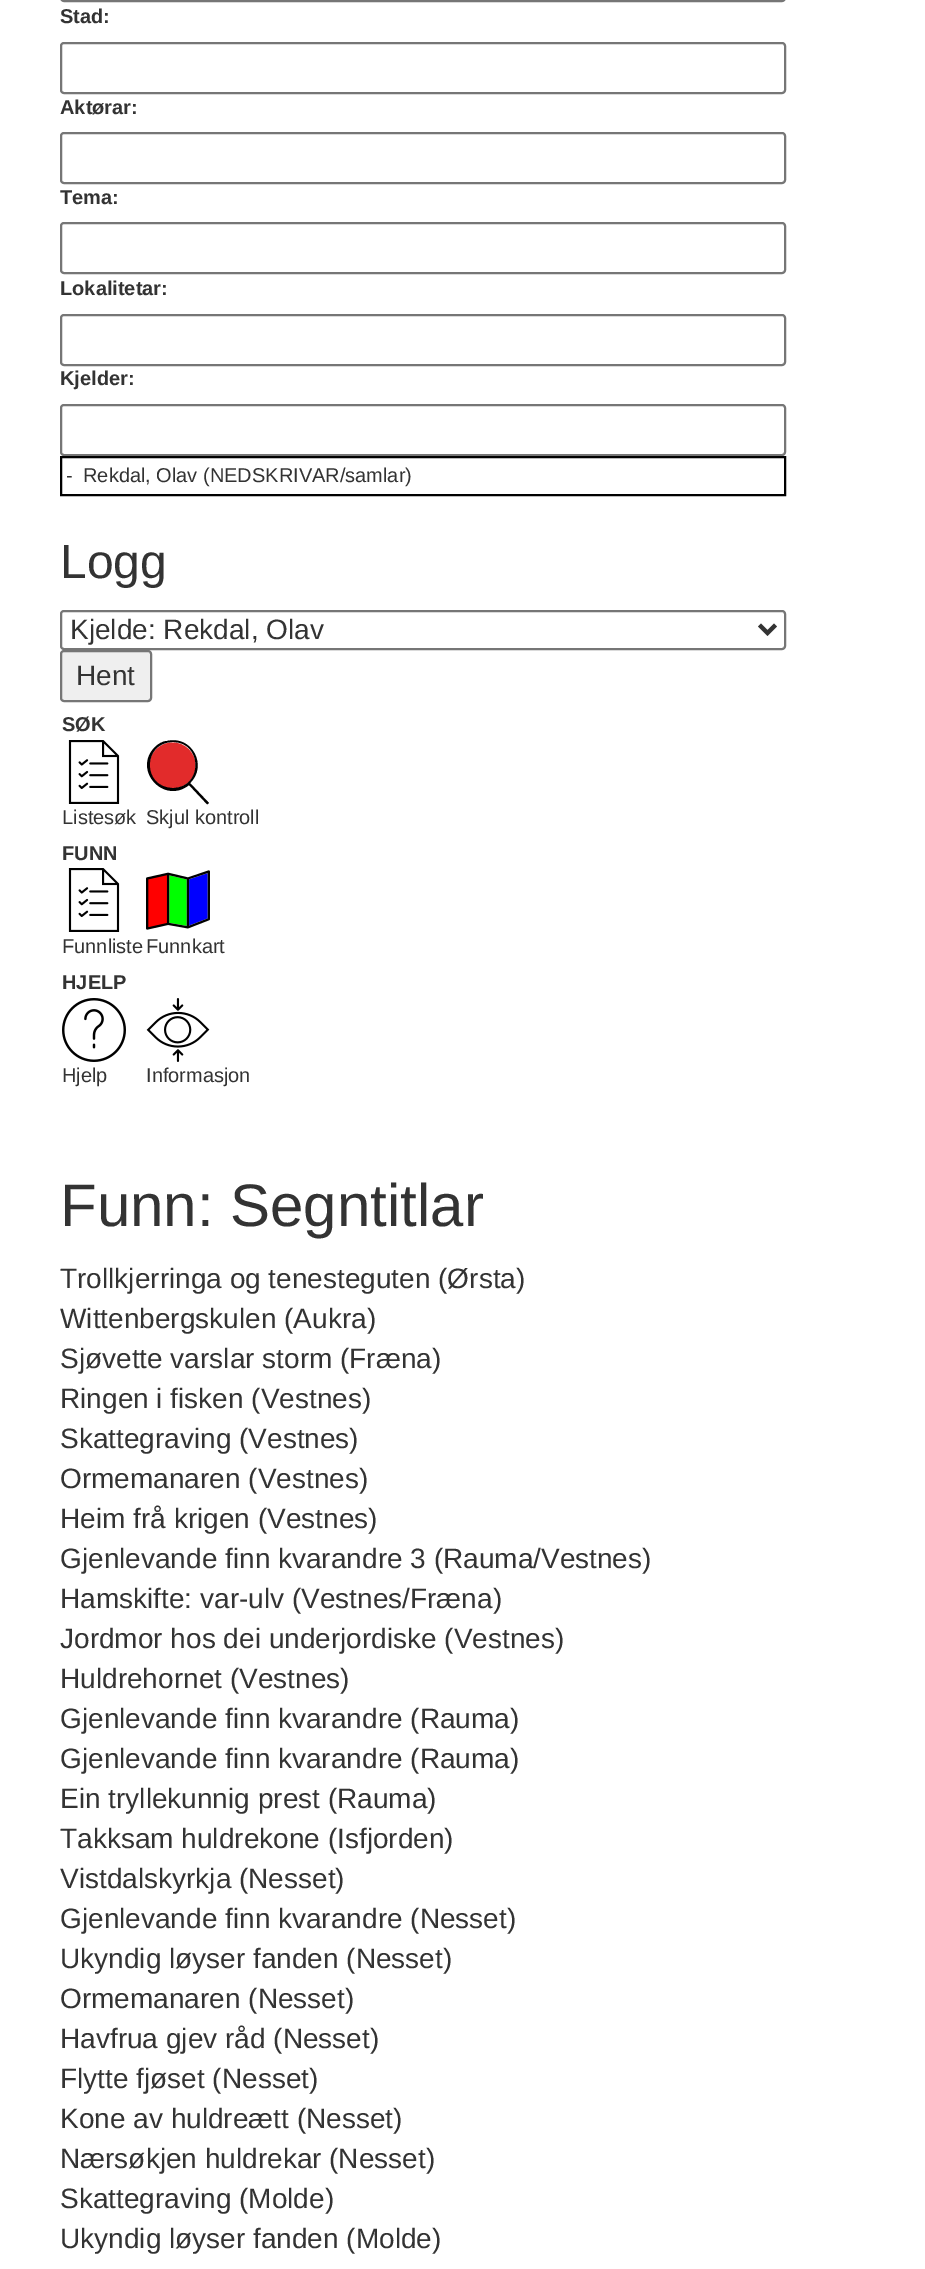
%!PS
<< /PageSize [925 2269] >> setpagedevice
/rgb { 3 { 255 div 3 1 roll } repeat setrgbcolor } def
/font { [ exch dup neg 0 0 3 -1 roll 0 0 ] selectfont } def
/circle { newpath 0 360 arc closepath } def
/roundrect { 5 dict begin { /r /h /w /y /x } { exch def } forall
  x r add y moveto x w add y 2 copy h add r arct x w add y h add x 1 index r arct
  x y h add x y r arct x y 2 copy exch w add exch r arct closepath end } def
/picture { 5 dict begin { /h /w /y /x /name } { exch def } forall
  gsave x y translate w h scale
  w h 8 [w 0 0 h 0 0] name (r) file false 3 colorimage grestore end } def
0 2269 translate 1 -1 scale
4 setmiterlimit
255 255 255 rgb
0 0 925 2269 rectfill
118 118 118 rgb
2 setlinewidth
61 -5 724 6 3 roundrect stroke
61 43 724 50 3 roundrect stroke
61 133 724 50 3 roundrect stroke
61 223 724 50 3 roundrect stroke
61 315 724 50 3 roundrect stroke
61 405 724 50 3 roundrect stroke
0 0 0 rgb
61 457 724 38 rectstroke
118 118 118 rgb
61 611 724 38 3 roundrect stroke
51 51 51 rgb
4 setlinewidth
759.5 625 moveto 767.5 633 lineto 775.5 625 lineto stroke
239 239 239 rgb
61 651 90 50 3 roundrect gsave fill grestore
118 118 118 rgb
2 setlinewidth
stroke
(img/1.rgb) 68 740 52 64 picture
226 43 43 rgb
172.5 765.5 23 circle fill
0 0 0 rgb
208 802 moveto 190 783 lineto 208 766 192 735 167 741 curveto 163 741 158 744 155 747 curveto 132 770 164 805 189 785 curveto 204 801 lineto 205 802 207 805 208 804 curveto 209 803 209 802 208 802 curveto closepath 173 788 moveto 142 788 142 742 173 742 curveto 203 742 203 788 173 788 curveto closepath fill
(img/1.rgb) 68 868 52 64 picture
(img/2.rgb) 146 870 64 60 picture
(img/3.rgb) 62 998 64 64 picture
(img/4.rgb) 146 998 64 64 picture
/LiberationSans-Bold 20 font
51 51 51 rgb
[
  [(Stad:) 60 23]
  [(Aktørar:) 60 114]
  [(Tema:) 60 204]
  [(Lokalitetar:) 60 295]
  [(Kjelder:) 60 385]
] { aload pop moveto show } forall
/LiberationSans-Regular 20 font
66 482 moveto (-) show
83 482 moveto (Rekdal, Olav \(NEDSKRIVAR/samlar\)) show
/LiberationSans-Regular 48 font
60 578 moveto (Logg) show
/LiberationSans-Regular 28 font
70 639 moveto (Kjelde: Rekdal, Olav) show
76 685 moveto (Hent) show
/LiberationSans-Bold 20 font
62 731 moveto (SØK) show
/LiberationSans-Regular 20 font
62 824 moveto (Listesøk) show
146 824 moveto (Skjul kontroll) show
/LiberationSans-Bold 20 font
62 860 moveto (FUNN) show
/LiberationSans-Regular 20 font
62 953 moveto (Funnliste) show
146 953 moveto (Funnkart) show
/LiberationSans-Bold 20 font
62 989 moveto (HJELP) show
/LiberationSans-Regular 20 font
62 1082 moveto (Hjelp) show
146 1082 moveto (Informasjon) show
/LiberationSans-Regular 60 font
60 1226 moveto (Funn: Segntitlar) show
/LiberationSans-Regular 28 font
[
  [(Trollkjerringa og tenesteguten \(Ørsta\)) 60 1288]
  [(Wittenbergskulen \(Aukra\)) 60 1328]
  [(Sjøvette varslar storm \(Fræna\)) 60 1368]
  [(Ringen i fisken \(Vestnes\)) 60 1408]
  [(Skattegraving \(Vestnes\)) 60 1448]
  [(Ormemanaren \(Vestnes\)) 60 1488]
  [(Heim frå krigen \(Vestnes\)) 60 1528]
  [(Gjenlevande finn kvarandre 3 \(Rauma/Vestnes\)) 60 1568]
  [(Hamskifte: var-ulv \(Vestnes/Fræna\)) 60 1608]
  [(Jordmor hos dei underjordiske \(Vestnes\)) 60 1648]
  [(Huldrehornet \(Vestnes\)) 60 1688]
  [(Gjenlevande finn kvarandre \(Rauma\)) 60 1728]
  [(Gjenlevande finn kvarandre \(Rauma\)) 60 1768]
  [(Ein tryllekunnig prest \(Rauma\)) 60 1808]
  [(Takksam huldrekone \(Isfjorden\)) 60 1848]
  [(Vistdalskyrkja \(Nesset\)) 60 1888]
  [(Gjenlevande finn kvarandre \(Nesset\)) 60 1928]
  [(Ukyndig løyser fanden \(Nesset\)) 60 1968]
  [(Ormemanaren \(Nesset\)) 60 2008]
  [(Havfrua gjev råd \(Nesset\)) 60 2048]
  [(Flytte fjøset \(Nesset\)) 60 2088]
  [(Kone av huldreætt \(Nesset\)) 60 2128]
  [(Nærsøkjen huldrekar \(Nesset\)) 60 2168]
  [(Skattegraving \(Molde\)) 60 2208]
  [(Ukyndig løyser fanden \(Molde\)) 60 2248]
] { aload pop moveto show } forall
showpage
